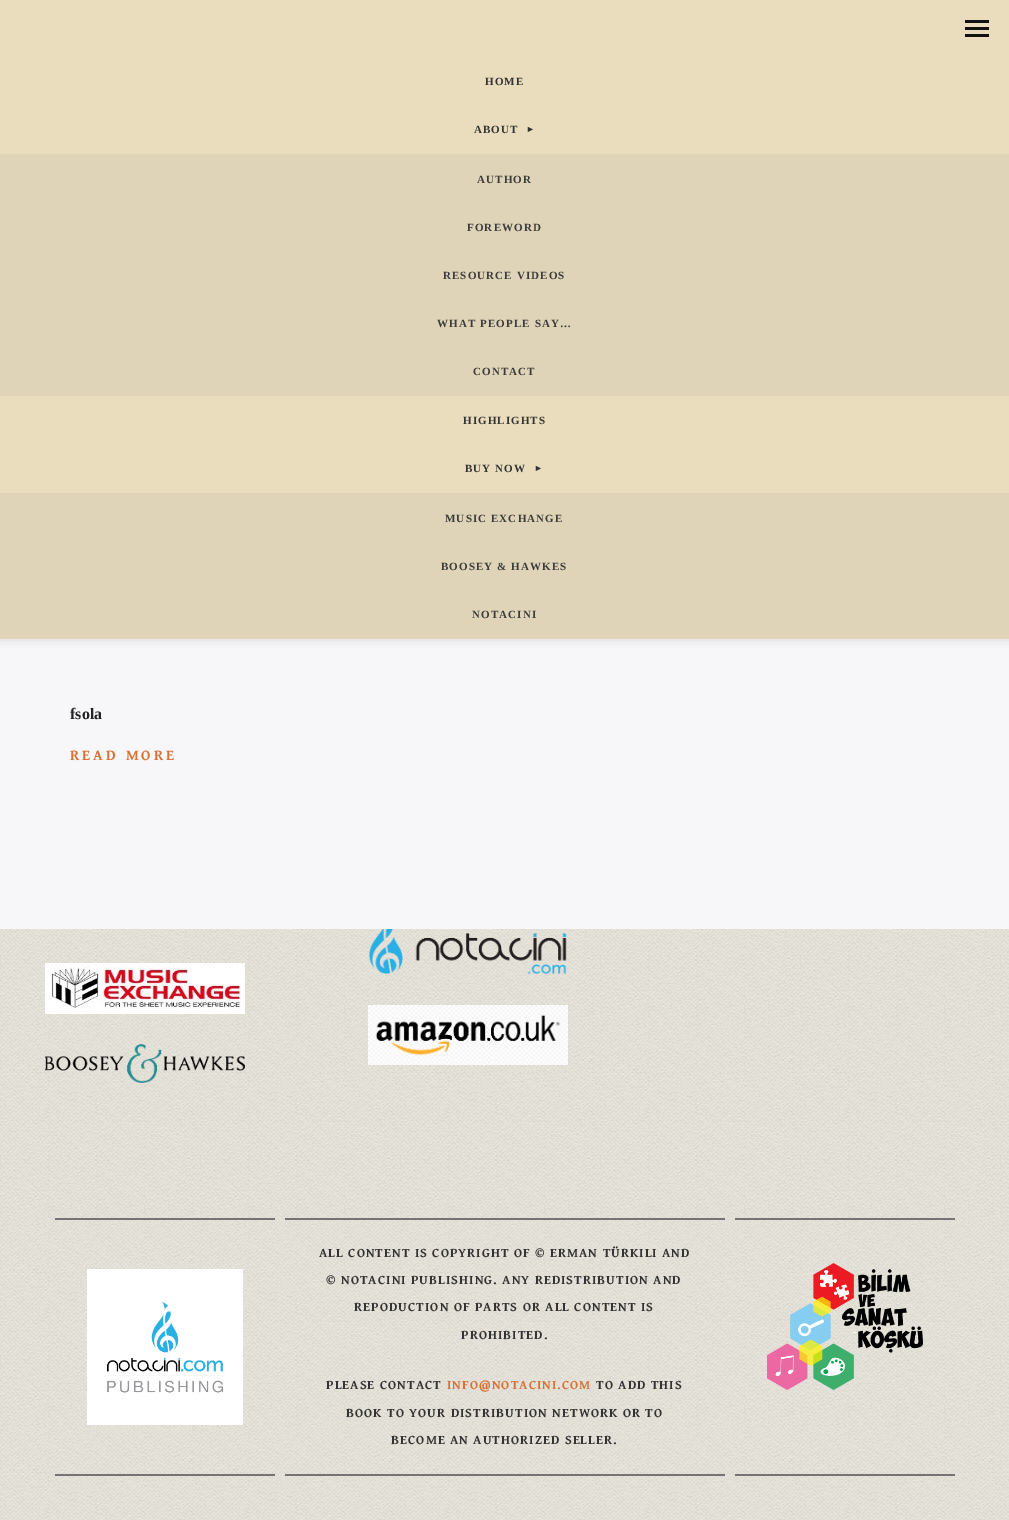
%!PS
<< /PageSize [1009 1520] /PageUsesTransparency true >> setpagedevice
/rgb { 3 { 255 div 3 1 roll } repeat setrgbcolor } def
/font { [ exch dup neg 0 0 3 -1 roll 0 0 ] selectfont } def
/alpha { dup .setfillconstantalpha .setstrokeconstantalpha } def
/roundrect { 5 dict begin { /r /h /w /y /x } { exch def } forall
  x r add y moveto x w add y 2 copy h add r arct x w add y h add x 1 index r arct
  x y h add x y r arct x y 2 copy exch w add exch r arct closepath end } def
/shadow { 12 dict begin { /a /b /q /h /w /y /x } { exch def } forall gsave /was 0 def
  9 -2 -9 { dup b mul 4 div /e exch def 1 sub .425 mul 2.718 exch exp 1 add a .99 .min exch div /now exch def
    1 1 now sub 1 was sub div sub alpha /was now def
    w h .min e 2 mul add 0 gt { x e sub y e sub w e 2 mul add h e 2 mul add
      q e add b .6 mul add w h .min 2 div e add .min 0 .max roundrect fill } if } for grestore end } def
/picture { 5 dict begin { /h /w /y /x /name } { exch def } forall
  gsave x y translate w h scale
  w h 8 [w 0 0 h 0 0] name (r) file false 3 colorimage grestore end } def
0 .pushpdf14devicefilter
0 1520 translate 1 -1 scale
4 setmiterlimit
255 255 255 rgb
0 0 1009 1520 rectfill
247 247 250 rgb
0 639 1009 290 rectfill
0 0 0 rgb
-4 -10 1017 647 0 5 0.2 shadow
[
  [0 0 1009 493 234 221 189]
  [965 20 24 3 17 17 17]
  [965 27 24 3 17 17 17]
  [965 34 24 3 17 17 17]
  [0 154 1009 242 223 212 183]
  [0 493 1009 146 223 212 183]
] { aload pop rgb rectfill } forall
(img/1.rgb) 0 929 1009 591 picture
(img/2.rgb) 45 963 200 51 picture
(img/3.rgb) 45 1044 200 39 picture
(img/4.rgb) 369 929 198 46 picture
(img/5.rgb) 368 1005 200 60 picture
116 116 116 rgb
55 1218 220 2 rectfill
55 1474 220 2 rectfill
(img/6.rgb) 87 1269 156 156 picture
[
  [285 1218 440 2 116 116 116]
  [285 1474 440 2 116 116 116]
  [735 1218 220 2 116 116 116]
  [735 1474 220 2 116 116 116]
] { aload pop rgb rectfill } forall
(img/7.rgb) 767 1263 156 127 picture
/LiberationSerif-Bold 11 font
51 51 51 rgb
485 85 moveto 1.1 0 (HOME) ashow
474 133 moveto 1.1 0 (ABOUT) ashow
/LiberationSerif-Bold 9 font
526 132 moveto 1.1 0 (►) ashow
/LiberationSerif-Bold 11 font
59 59 59 rgb
477 183 moveto 1.1 0 (AUTHOR) ashow
467 231 moveto 1.1 0 (FOREWORD) ashow
443 279 moveto 1.1 0 (RESOURCE VIDEOS) ashow
437 327 moveto 1.1 0 (WHAT PEOPLE SAY…) ashow
473 375 moveto 1.1 0 (CONTACT) ashow
51 51 51 rgb
463 424 moveto 1.1 0 (HIGHLIGHTS) ashow
465 472 moveto 1.1 0 (BUY NOW) ashow
/LiberationSerif-Bold 9 font
534 471 moveto 1.1 0 (►) ashow
/LiberationSerif-Bold 11 font
59 59 59 rgb
445 522 moveto 1.1 0 (MUSIC EXCHANGE) ashow
441 570 moveto 1.1 0 (BOOSEY & HAWKES) ashow
472 618 moveto 1.1 0 (NOTACINI) ashow
/LiberationSerif-Bold 16 font
34 34 34 rgb
70 719 moveto (fsola) show
/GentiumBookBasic-Bold 15 font
215 114 52 rgb
70 760 moveto 3 0 (READ MORE) ashow
/GentiumBookBasic-Bold 13 font
51 51 51 rgb
319 1257 moveto 1 0 (ALL CONTENT IS COPYRIGHT OF © ERMAN TÜRKILI AND) ashow
326 1284 moveto 1 0 (© NOTACINI PUBLISHING. ANY REDISTRIBUTION AND) ashow
354 1311 moveto 1 0 (REPODUCTION OF PARTS OR ALL CONTENT IS) ashow
461 1339 moveto 1 0 (PROHIBITED.) ashow
326 1389 moveto 1 0 (PLEASE CONTACT) ashow
215 114 52 rgb
447 1389 moveto 1 0 (INFO@NOTACINI.COM) ashow
51 51 51 rgb
596 1389 moveto 1 0 (TO ADD THIS) ashow
346 1417 moveto 1 0 (BOOK TO YOUR DISTRIBUTION NETWORK OR TO) ashow
391 1444 moveto 1 0 (BECOME AN AUTHORIZED SELLER.) ashow
.poppdf14devicefilter showpage
